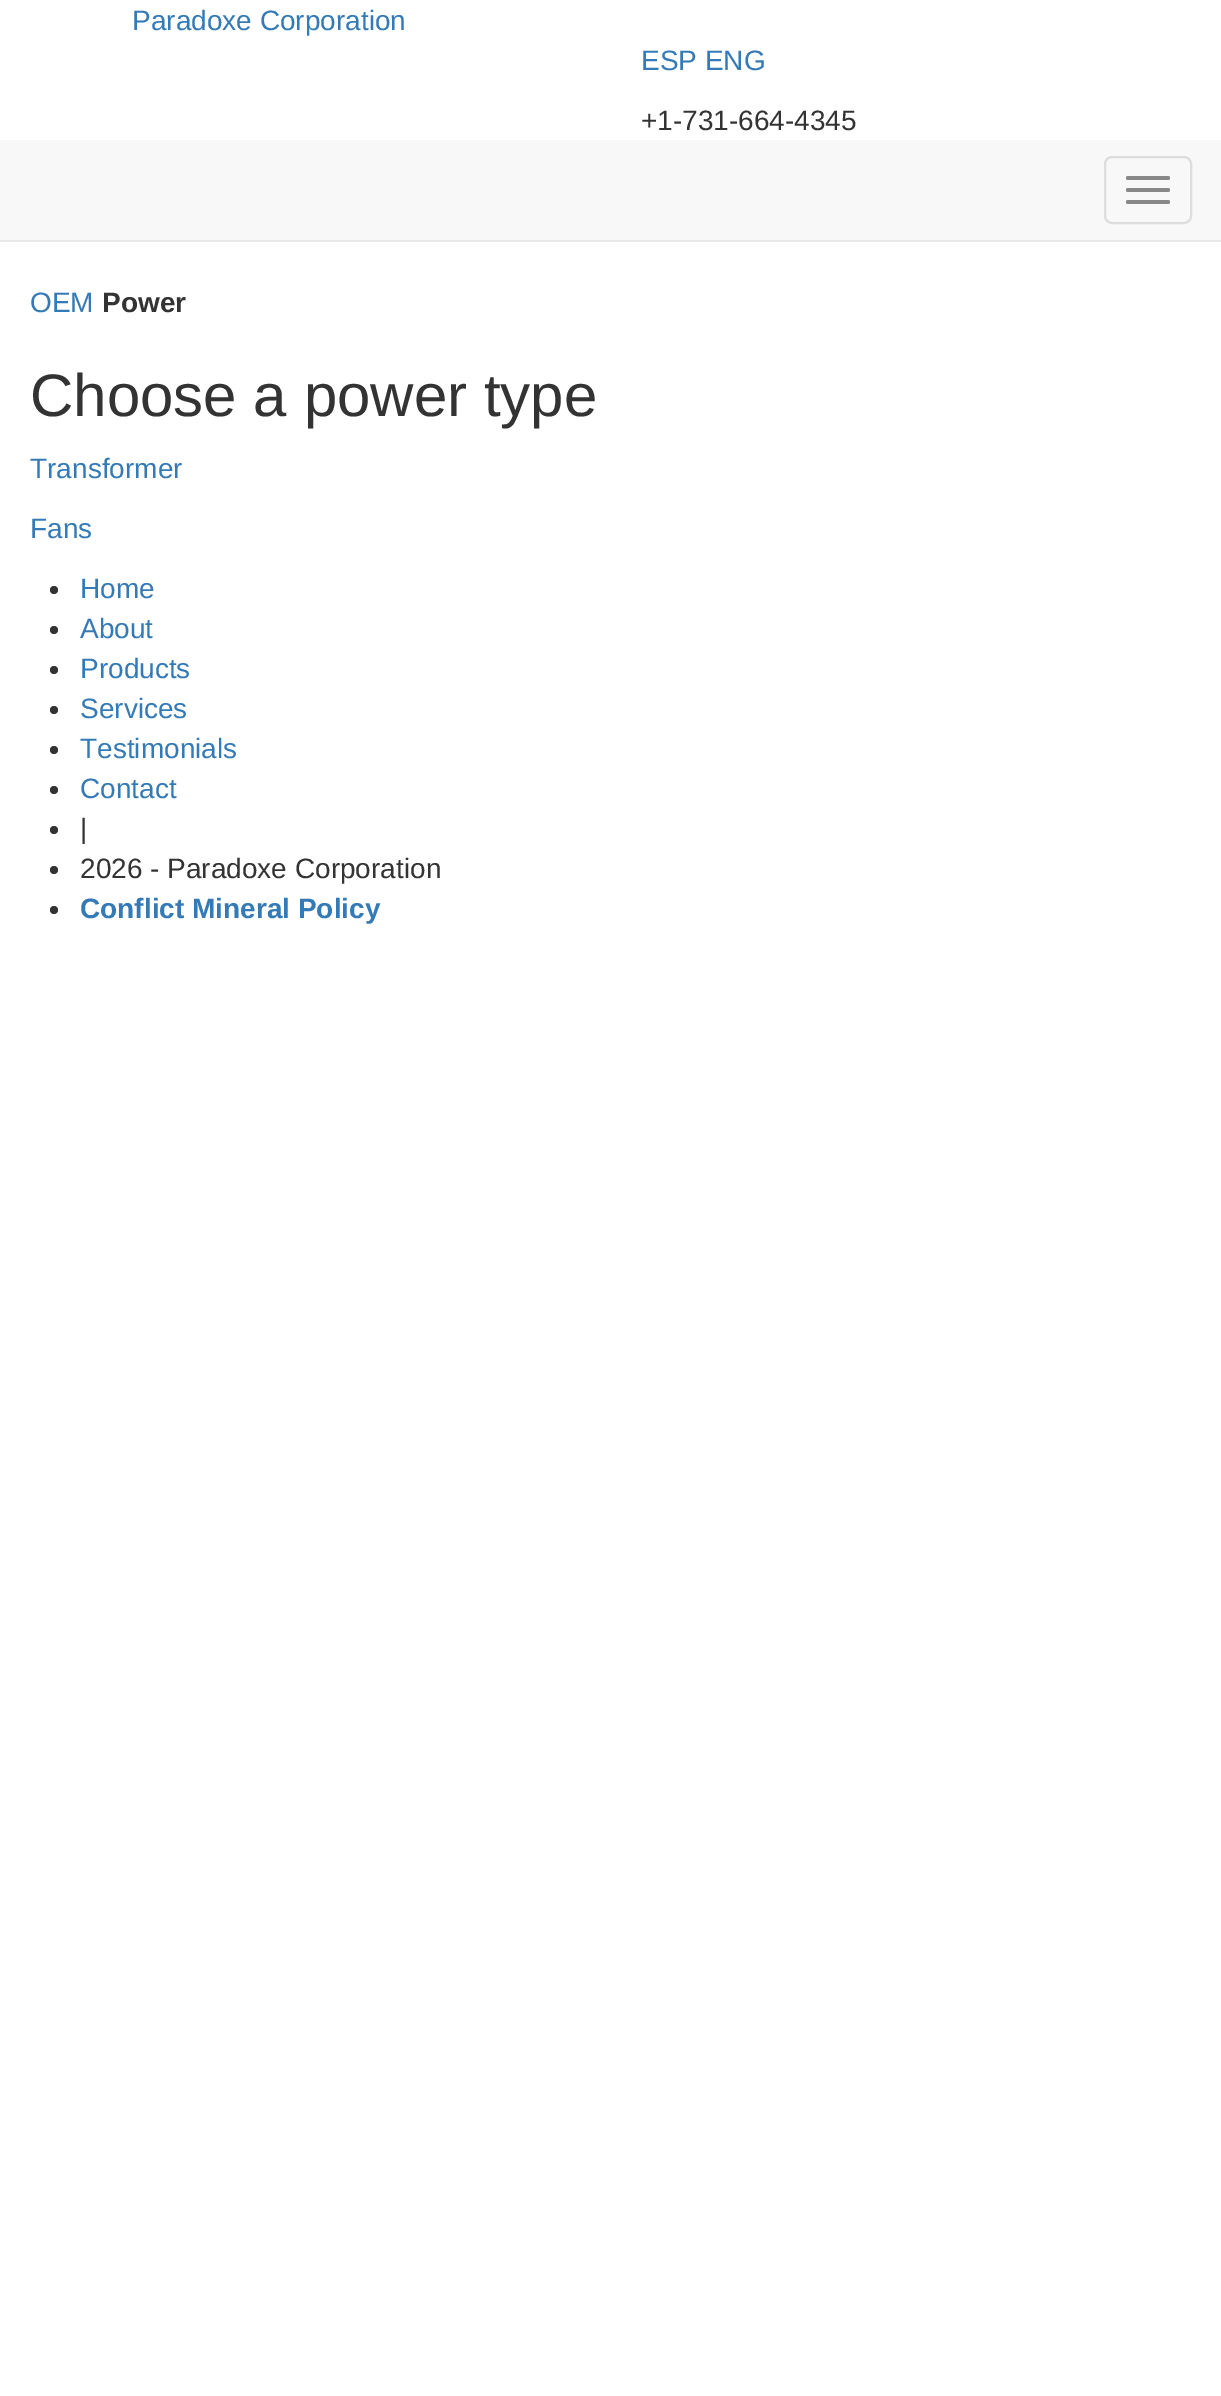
%!PS
<< /PageSize [1221 2396] >> setpagedevice
/rgb { 3 { 255 div 3 1 roll } repeat setrgbcolor } def
/font { [ exch dup neg 0 0 3 -1 roll 0 0 ] selectfont } def
/circle { newpath 0 360 arc closepath } def
/roundrect { 5 dict begin { /r /h /w /y /x } { exch def } forall
  x r add y moveto x w add y 2 copy h add r arct x w add y h add x 1 index r arct
  x y h add x y r arct x y 2 copy exch w add exch r arct closepath end } def
0 2396 translate 1 -1 scale
4 setmiterlimit
255 255 255 rgb
0 0 1221 2396 rectfill
248 248 248 rgb
0 140 1221 100 rectfill
231 231 231 rgb
0 240 1221 2 rectfill
221 221 221 rgb
2 setlinewidth
1105 157 86 66 7 roundrect stroke
136 136 136 rgb
1126 176 44 4 2 roundrect fill
1126 188 44 4 2 roundrect fill
1126 200 44 4 2 roundrect fill
51 51 51 rgb
54 590 4 circle fill
54 630 4 circle fill
54 670 4 circle fill
54 710 4 circle fill
54 750 4 circle fill
54 790 4 circle fill
54 830 4 circle fill
54 870 4 circle fill
54 910 4 circle fill
/LiberationSans-Regular 28 font
51 122 183 rgb
132 30 moveto (Paradoxe Corporation) show
641 70 moveto (ESP ENG) show
51 51 51 rgb
641 130 moveto (+1-731-664-4345) show
51 122 183 rgb
30 312 moveto (OEM) show
/LiberationSans-Bold 28 font
51 51 51 rgb
102 312 moveto (Power) show
/LiberationSans-Regular 60 font
30 416 moveto (Choose a power type) show
/LiberationSans-Regular 28 font
51 122 183 rgb
[
  [(Transformer) 30 478]
  [(Fans) 30 538]
  [(Home) 80 598]
  [(About) 80 638]
  [(Products) 80 678]
  [(Services) 80 718]
  [(Testimonials) 80 758]
  [(Contact) 80 798]
] { aload pop moveto show } forall
51 51 51 rgb
80 838 moveto (|) show
80 878 moveto (2026 - Paradoxe Corporation) show
/LiberationSans-Bold 28 font
51 122 183 rgb
80 918 moveto (Conflict Mineral Policy) show
showpage
